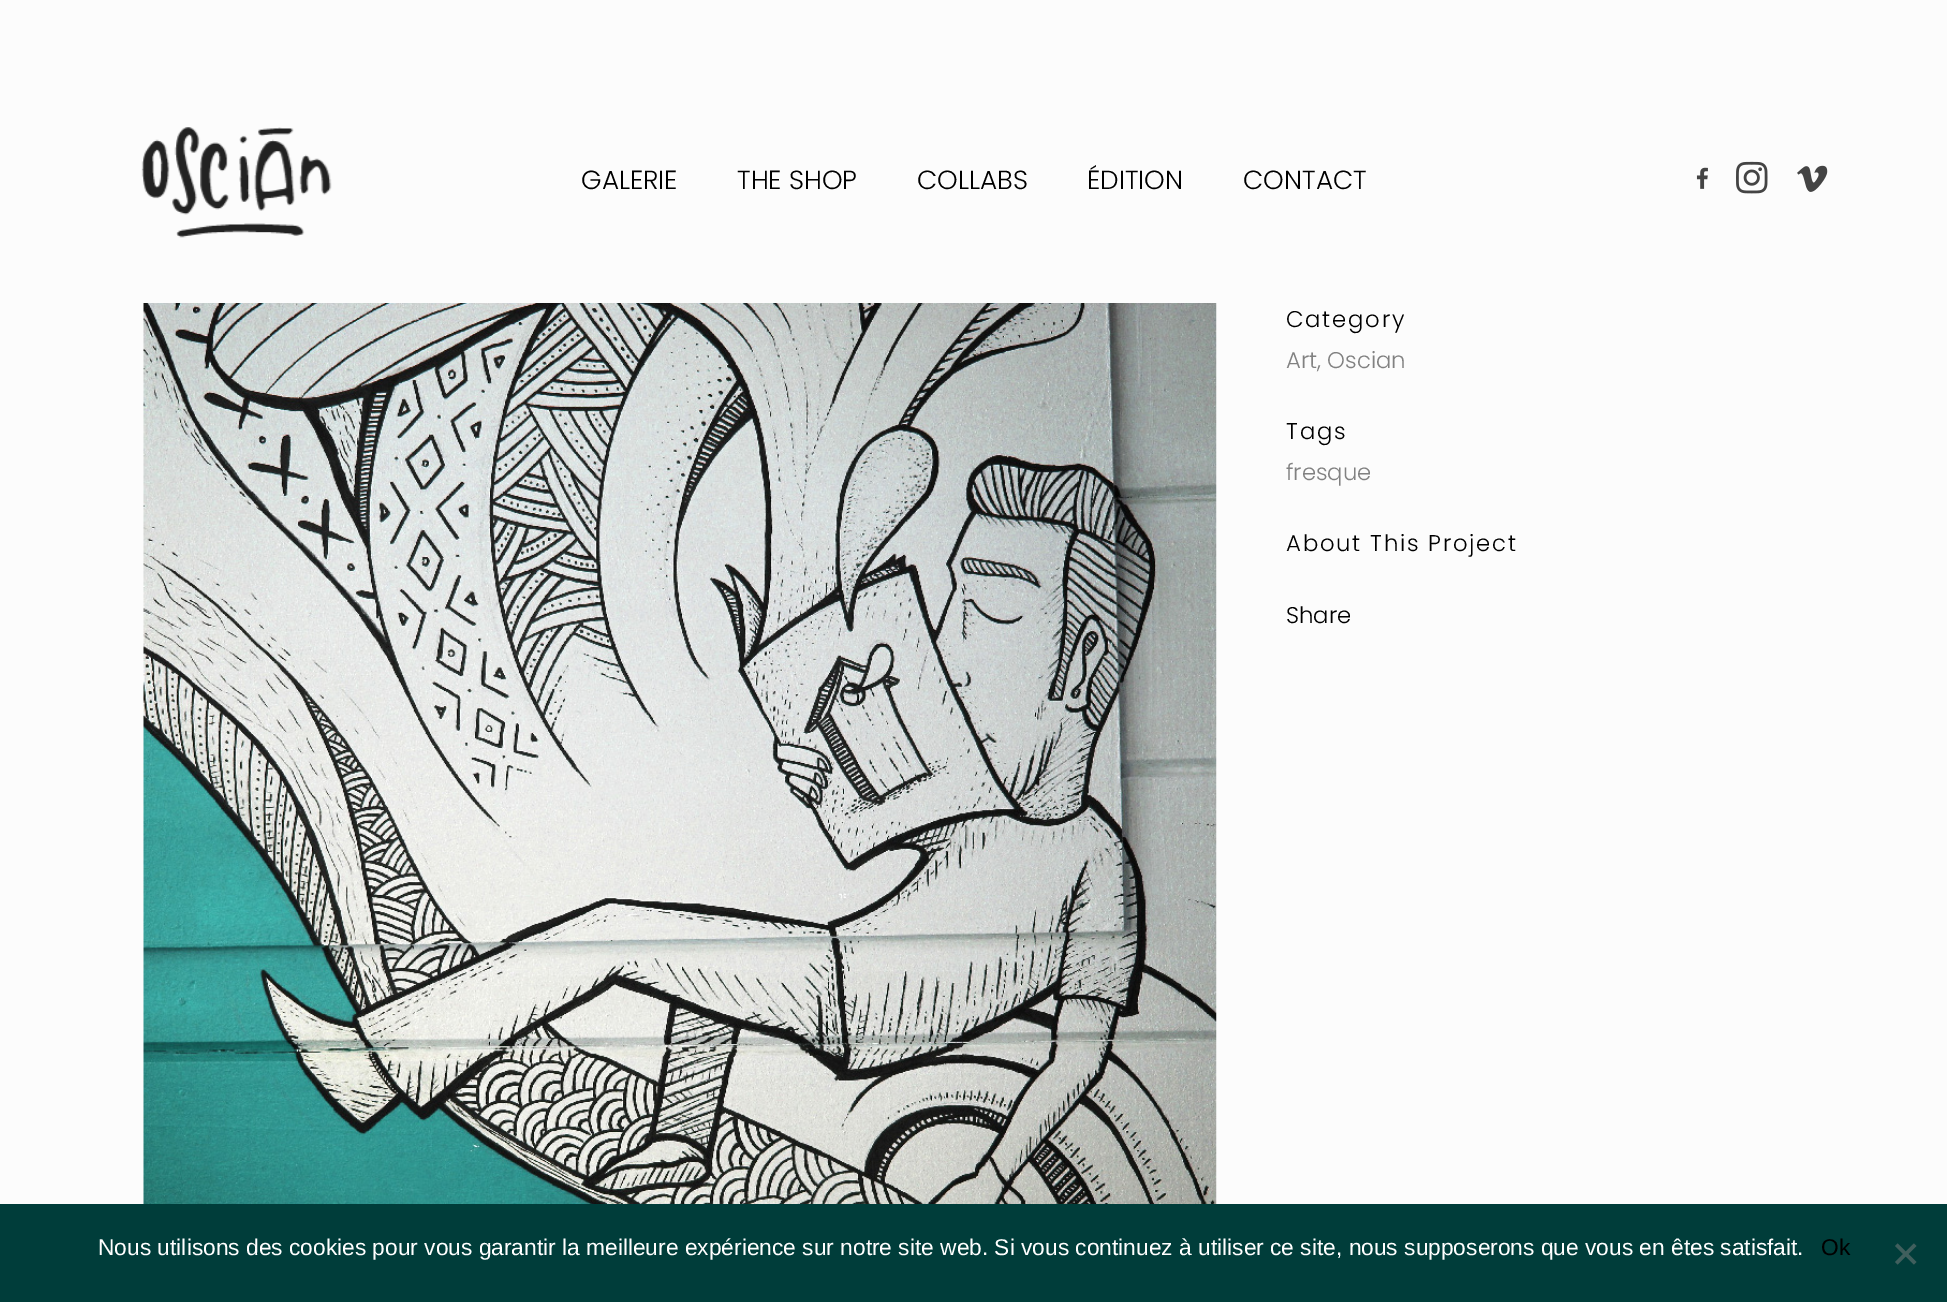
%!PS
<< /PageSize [1947 1302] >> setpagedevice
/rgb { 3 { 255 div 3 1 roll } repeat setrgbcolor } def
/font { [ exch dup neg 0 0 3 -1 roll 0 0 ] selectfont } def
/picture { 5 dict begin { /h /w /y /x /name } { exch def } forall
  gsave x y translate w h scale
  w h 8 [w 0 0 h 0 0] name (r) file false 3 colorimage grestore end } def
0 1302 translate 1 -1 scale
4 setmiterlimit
252 252 252 rgb
0 0 1947 1302 rectfill
(img/1.rgb) 141 127 191 111 picture
(img/2.rgb) 1696 167 12 22 picture
(img/3.rgb) 1736 161 32 33 picture
(img/4.rgb) 1797 165 31 27 picture
(img/5.rgb) 143 303 1074 901 picture
0 61 58 rgb
0 1204 1947 98 rectfill
64 95 93 rgb
1914 1243.5 moveto 1916.5 1246 lineto 1897.5 1264.5 lineto 1895 1262 lineto closepath fill
1895 1246 moveto 1897.5 1243.5 lineto 1916.5 1262 lineto 1914 1264.5 lineto closepath fill
/Poppins-Light 26.25 font
0 0 0 rgb
[
  [(GALERIE) 581 189]
  [(THE SHOP) 737 189]
  [(COLLABS) 917 189]
  [(ÉDITION) 1087 189]
  [(CONTACT) 1243 189]
] { aload pop moveto show } forall
/Poppins-Light 22.75 font
1286 327 moveto 1.75 0 (Category) ashow
129 129 129 rgb
1286 368 moveto (Art, Oscian) show
0 0 0 rgb
1286 439 moveto 1.75 0 (Tags) ashow
129 129 129 rgb
1286 480 moveto (fresque) show
0 0 0 rgb
1286 551 moveto 1.75 0 (About This Project) ashow
1286 623 moveto (Share) show
/LiberationSans-Regular 22.75 font
255 255 255 rgb
98 1255 moveto (Nous utilisons des cookies pour vous garantir la meilleure expérience sur notre site web. Si vous continuez à utiliser ce site, nous supposerons que vous en êtes satisfait.) show
0 0 0 rgb
1821 1255 moveto (Ok) show
showpage
